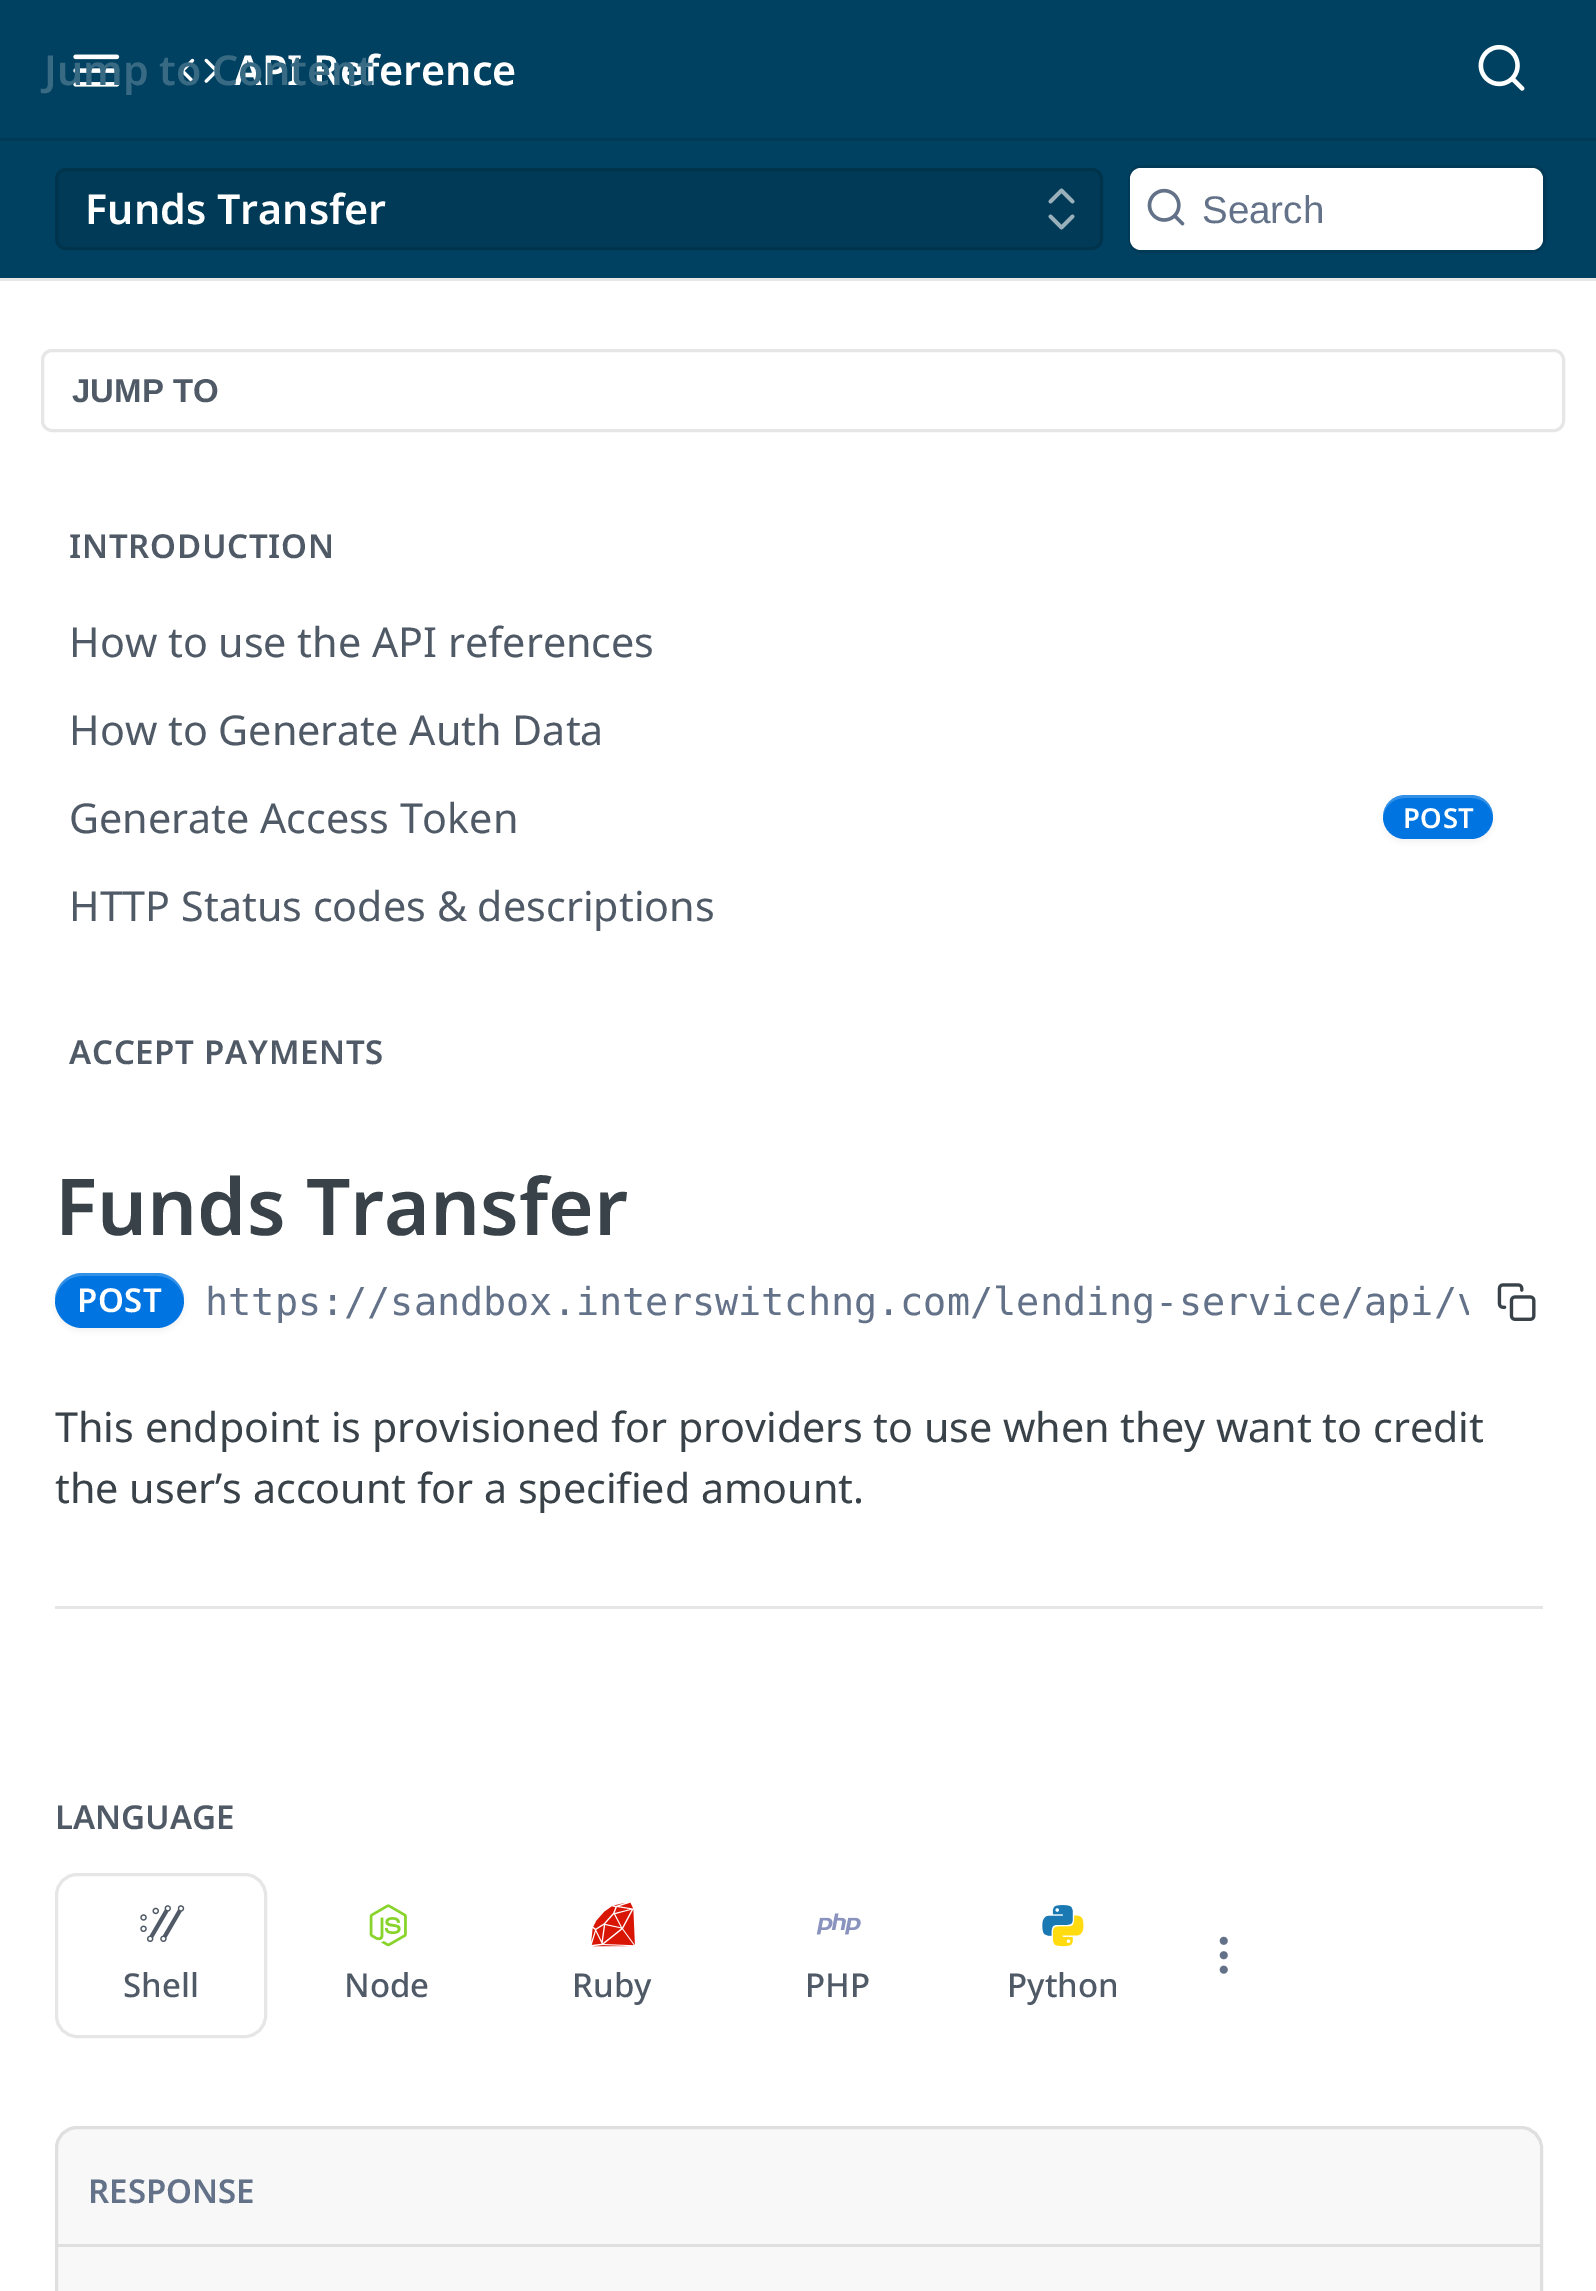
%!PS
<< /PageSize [1596 2291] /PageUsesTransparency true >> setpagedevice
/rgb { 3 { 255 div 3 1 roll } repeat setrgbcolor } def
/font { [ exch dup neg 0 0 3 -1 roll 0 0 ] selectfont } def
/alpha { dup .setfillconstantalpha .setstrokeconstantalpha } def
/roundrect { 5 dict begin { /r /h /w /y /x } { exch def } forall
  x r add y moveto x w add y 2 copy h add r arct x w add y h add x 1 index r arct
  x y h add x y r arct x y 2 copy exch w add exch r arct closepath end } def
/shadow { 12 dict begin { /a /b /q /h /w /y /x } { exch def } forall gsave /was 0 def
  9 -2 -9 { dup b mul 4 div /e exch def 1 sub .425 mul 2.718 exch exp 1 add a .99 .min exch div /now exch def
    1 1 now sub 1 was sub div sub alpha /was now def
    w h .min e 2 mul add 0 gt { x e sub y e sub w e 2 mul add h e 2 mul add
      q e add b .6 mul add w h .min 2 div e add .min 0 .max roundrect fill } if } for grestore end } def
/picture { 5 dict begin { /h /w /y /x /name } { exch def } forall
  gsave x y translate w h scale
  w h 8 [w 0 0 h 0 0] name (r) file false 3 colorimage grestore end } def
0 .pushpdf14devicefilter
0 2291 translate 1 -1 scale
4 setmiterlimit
255 255 255 rgb
0 0 1596 2291 rectfill
230 230 230 rgb
0 278 moveto 0 281 lineto 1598 281 lineto 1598 3 lineto 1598 278 lineto closepath fill
0 64 96 rgb
0 0 1596 278 rectfill
0 58 86 rgb
0 138 1596 3 rectfill
(img/1.rgb) 73 54 47 33 picture
(img/2.rgb) 180 58 39 25 picture
(img/3.rgb) 1478 44 47 47 picture
55 168 1048 82 11 roundrect fill
0.1 alpha
0 0 0 rgb
3 setlinewidth
56.5 169.5 1045 79 9.5 roundrect stroke
1 alpha
153 176 187 rgb
3.7 setlinewidth
1 setlinecap
1 setlinejoin
1050.5 216.5 moveto 1061.5 227.5 lineto 1072.5 216.5 lineto 1072.5 201.5 moveto 1061.5 190.5 lineto 1050.5 201.5 lineto stroke
0 58 86 rgb
3 setlinewidth
0 setlinecap
0 setlinejoin
1129.5 166.5 415 85 12.5 roundrect stroke
255 255 255 rgb
1130 168 413 82 11 roundrect fill
(img/4.rgb) 1147 188 38 38 picture
230 230 230 rgb
42.5 350.5 1521 80 9.5 roundrect stroke
0 0 0 rgb
1383 798 110 44 22 3 0.05 shadow
0 116 225 rgb
1383 795 110 44 22 roundrect fill
0.2 alpha
255 255 255 rgb
1405 798 moveto 1471 798 lineto 1483 798 1492 806 1493 818 curveto 1494 808 1486 798 1475 795 curveto 1460 795 lineto 1401 795 lineto 1390 798 1382 808 1383 818 curveto 1384 806 1393 798 1405 798 curveto closepath fill
1 alpha
230 230 230 rgb
55 1606 1488 3 rectfill
0 0 0 rgb
55 1276 129 55 27.5 3 0.05 shadow
0 116 225 rgb
55 1273 129 55 27.5 roundrect fill
0.2 alpha
255 255 255 rgb
82 1276 moveto 157 1276 lineto 171 1276 183 1287 184 1302 curveto 184 1300 lineto 184 1285 172 1273 156 1273 curveto 82 1273 lineto 67 1273 55 1285 55 1300 curveto 55 1302 lineto 56 1287 68 1276 82 1276 curveto closepath fill
1 alpha
(img/5.rgb) 1497 1283 39 38 picture
(img/6.rgb) 1219 1936 9 38 picture
230 230 230 rgb
56.5 1874.5 209 162 20.5 roundrect stroke
(img/7.rgb) 140 1905 45 38 picture
(img/8.rgb) 369 1904 38 43 picture
(img/9.rgb) 591 1902 44 45 picture
(img/10.rgb) 816 1913 45 22 picture
(img/11.rgb) 1042 1905 31 31 picture
(img/12.rgb) 1052 1915 32 32 picture
248 248 248 rgb
77 2126 moveto 1521 2126 lineto 1533 2126 1543 2136 1543 2148 curveto 1543 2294 lineto 55 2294 lineto 55 2148 lineto 55 2136 65 2126 77 2126 curveto closepath fill
0.1 alpha
0 0 0 rgb
56.5 2127.5 1485 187 20.5 roundrect stroke
1 alpha
223 223 223 rgb
58 2244 1482 3 rectfill
/NotoSans-SemiBold 41.25 font
255 255 255 rgb
234 85 moveto (API Reference) show
56 106 131 rgb
44 85 moveto (Jump to Content) show
255 255 255 rgb
85 224 moveto (Funds Transfer) show
/LiberationSans-Regular 38.5 font
99 114 136 rgb
1202 223 moveto (Search) show
/LiberationSans-Bold 33 font
79 90 102 rgb
72 402 moveto (JUMP TO) show
/NotoSans-SemiBold 33 font
69 558 moveto 0.7 0 (INTRODUCTION) ashow
/NotoSans-Regular 41.25 font
[
  [(How to use the API references) 69 657]
  [(How to Generate Auth Data) 69 745]
  [(Generate Access Token) 69 833]
] { aload pop moveto show } forall
/NotoSans-SemiBold 27.5 font
255 255 255 rgb
1403 828 moveto 0.5 0 (POST) ashow
/NotoSans-Regular 41.25 font
79 90 102 rgb
69 921 moveto (HTTP Status codes & descriptions) show
/NotoSans-SemiBold 33 font
69 1064 moveto 0.7 0 (ACCEPT PAYMENTS) ashow
/NotoSans-SemiBold 78.5 font
56 66 72 rgb
55 1235 moveto (Funds Transfer) show
/NotoSans-SemiBold 33 font
255 255 255 rgb
77 1312 moveto 0.5 0 (POST) ashow
/DejaVuSansMono-Regular 38.5 font
99 114 136 rgb
205 1315 moveto (https://sandbox.interswitchng.com) show
gsave
206 1273 1263 55 rectclip
970 1315 moveto (/lending-service/api/v) show
grestore
/NotoSans-Regular 41.25 font
56 66 72 rgb
55 1442 moveto (This endpoint is provisioned for providers to use when they want to credit) show
55 1503 moveto (the user’s account for a specified amount.) show
/NotoSans-SemiBold 33 font
79 90 102 rgb
55 1829 moveto (LANGUAGE) show
/NotoSans-Medium 33 font
[
  [(Shell) 123 1997]
  [(Node) 344 1997]
  [(Ruby) 572 1997]
  [(PHP) 805 1997]
  [(Python) 1007 1997]
] { aload pop moveto show } forall
/NotoSans-SemiBold 33 font
99 114 136 rgb
88 2203 moveto (RESPONSE) show
.poppdf14devicefilter showpage
